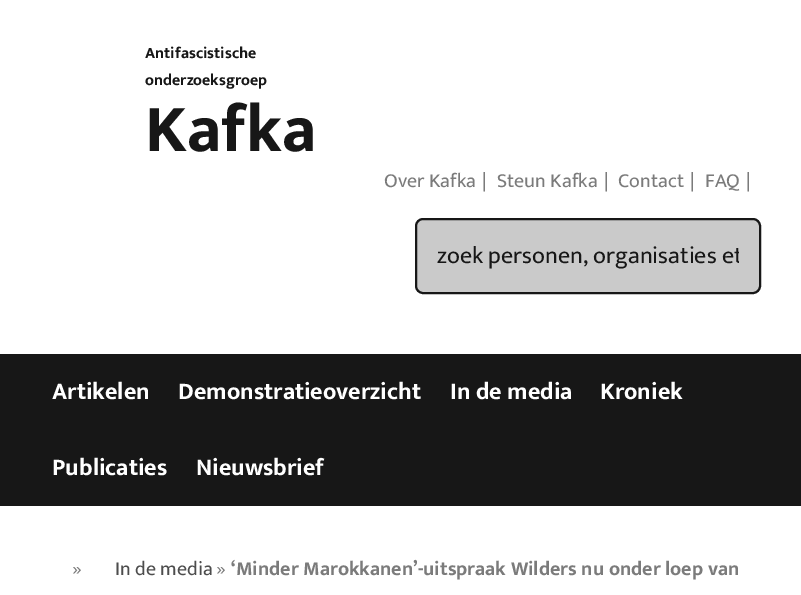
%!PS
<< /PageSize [801 595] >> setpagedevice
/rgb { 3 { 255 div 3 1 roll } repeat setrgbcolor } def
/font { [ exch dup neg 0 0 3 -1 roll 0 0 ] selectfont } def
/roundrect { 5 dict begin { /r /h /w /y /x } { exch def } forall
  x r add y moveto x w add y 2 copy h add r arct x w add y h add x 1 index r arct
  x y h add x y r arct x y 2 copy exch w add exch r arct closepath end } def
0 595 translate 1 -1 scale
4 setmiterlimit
255 255 255 rgb
0 0 801 595 rectfill
202 202 202 rgb
416 219 344 74 7 roundrect gsave fill grestore
23 23 23 rgb
2 setlinewidth
stroke
0 354 801 152 rectfill
/EkMukta-Bold 16 font
145 58 moveto (Antifascistische) show
145 85 moveto (onderzoeksgroep) show
/EkMukta-Bold 68 font
145 151 moveto (Kafka) show
/EkMukta-Regular 20 font
123 123 123 rgb
[
  [(Over Kafka) 384 187]
  [(|) 482 187]
  [(Steun Kafka) 497 187]
  [(|) 604 187]
  [(Contact) 618 187]
  [(|) 690 187]
  [(FAQ) 705 187]
  [(|) 746 187]
] { aload pop moveto show } forall
gsave
437 236 302 40 rectclip
/EkMukta-Regular 24 font
23 23 23 rgb
437 263 moveto (zoek personen, organisaties et) show
grestore
/EkMukta-Bold 24 font
255 255 255 rgb
[
  [(Artikelen) 52 399]
  [(Demonstratieoverzicht) 178 399]
  [(In de media) 450 399]
  [(Kroniek) 600 399]
  [(Publicaties) 52 475]
  [(Nieuwsbrief) 196 475]
] { aload pop moveto show } forall
/EkMukta-Regular 20 font
123 123 123 rgb
72 575 moveto (») show
77 77 77 rgb
115 575 moveto (In de media) show
123 123 123 rgb
216 575 moveto (») show
/EkMukta-Bold 20 font
231 575 moveto (‘Minder Marokkanen’-uitspraak Wilders nu onder loep van) show
showpage
